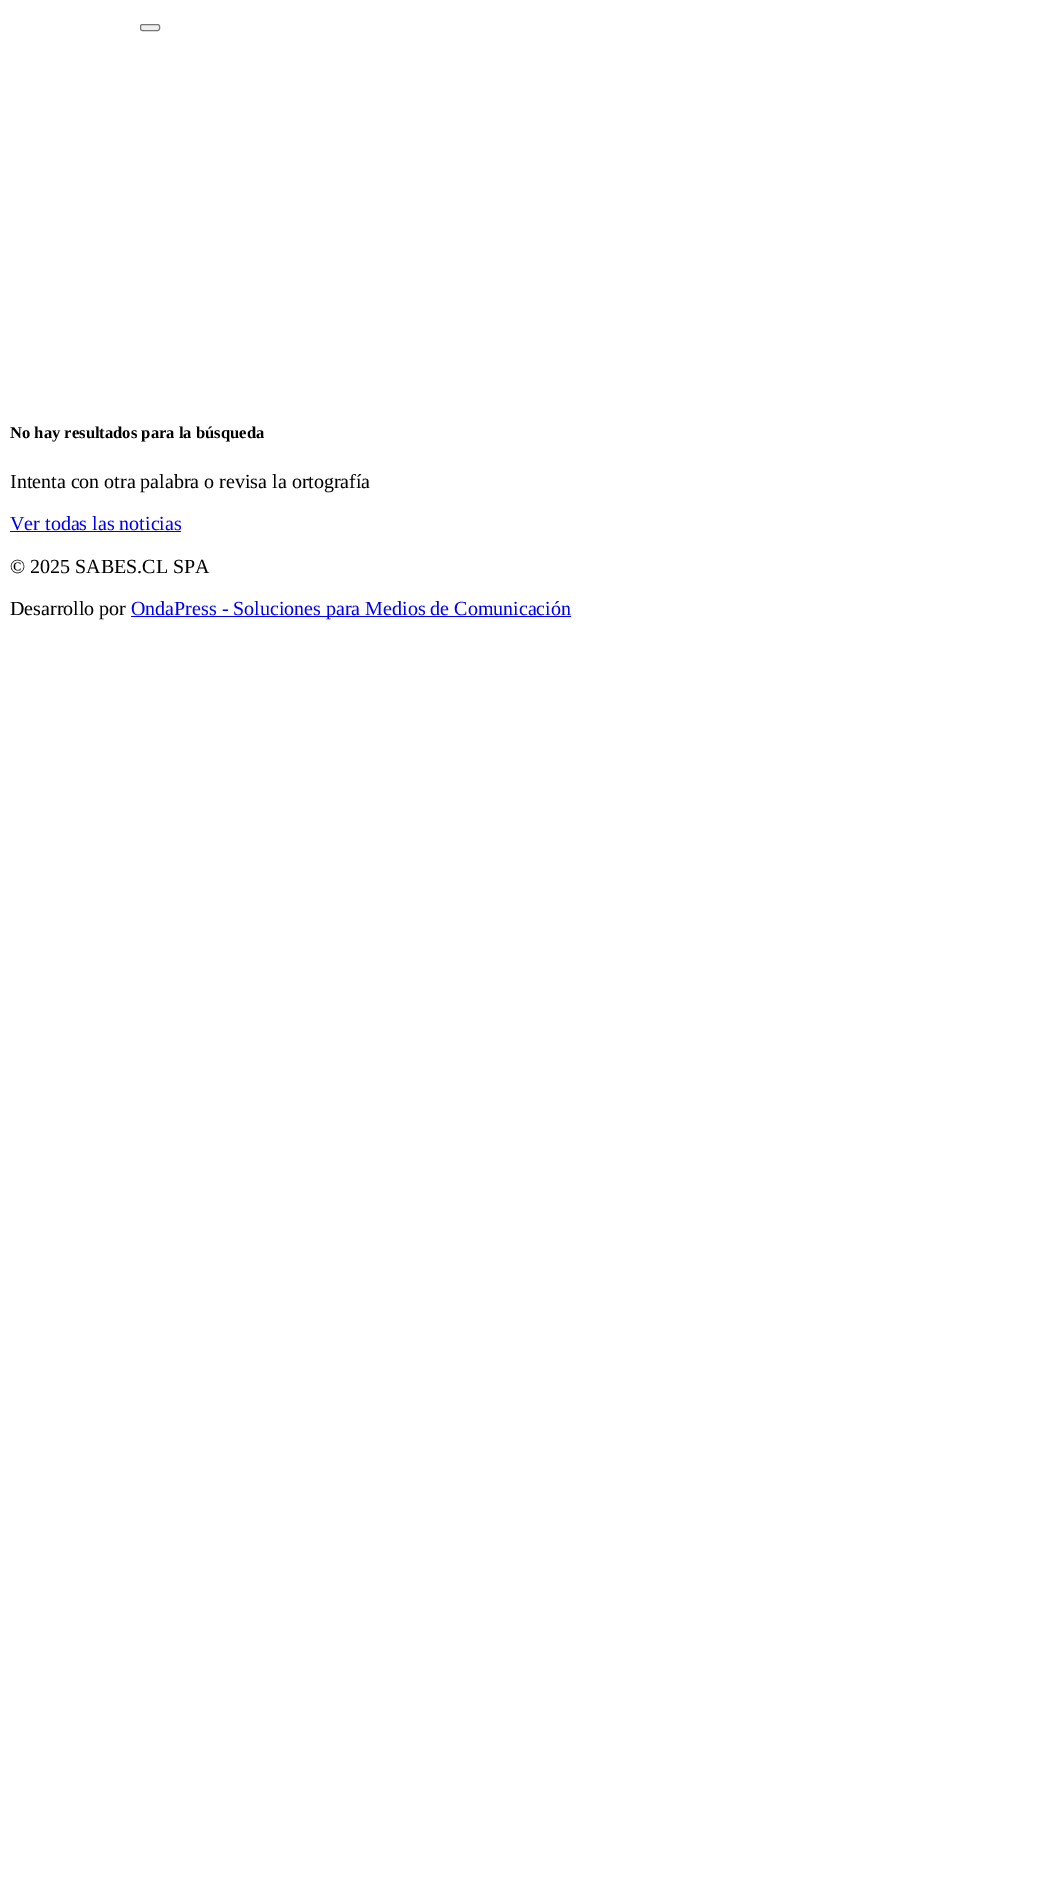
%!PS
<< /PageSize [1049 1888] >> setpagedevice
/rgb { 3 { 255 div 3 1 roll } repeat setrgbcolor } def
/font { [ exch dup neg 0 0 3 -1 roll 0 0 ] selectfont } def
/roundrect { 5 dict begin { /r /h /w /y /x } { exch def } forall
  x r add y moveto x w add y 2 copy h add r arct x w add y h add x 1 index r arct
  x y h add x y r arct x y 2 copy exch w add exch r arct closepath end } def
0 1888 translate 1 -1 scale
4 setmiterlimit
255 255 255 rgb
0 0 1049 1888 rectfill
239 239 239 rgb
140.5 24.5 19 6 2 roundrect gsave fill grestore
118 118 118 rgb
stroke
0 0 238 rgb
10 531 171 1 rectfill
131 616 440 1 rectfill
/LiberationSerif-Bold 16.6 font
0 0 0 rgb
10 438 moveto (No hay resultados para la búsqueda) show
/LiberationSerif-Regular 20 font
10 488 moveto (Intenta con otra palabra o revisa la ortografía) show
0 0 238 rgb
10 530 moveto (Ver todas las noticias) show
0 0 0 rgb
10 573 moveto (© 2025 SABES.CL SPA) show
10 615 moveto (Desarrollo por) show
0 0 238 rgb
131 615 moveto (OndaPress - Soluciones para Medios de Comunicación) show
showpage
